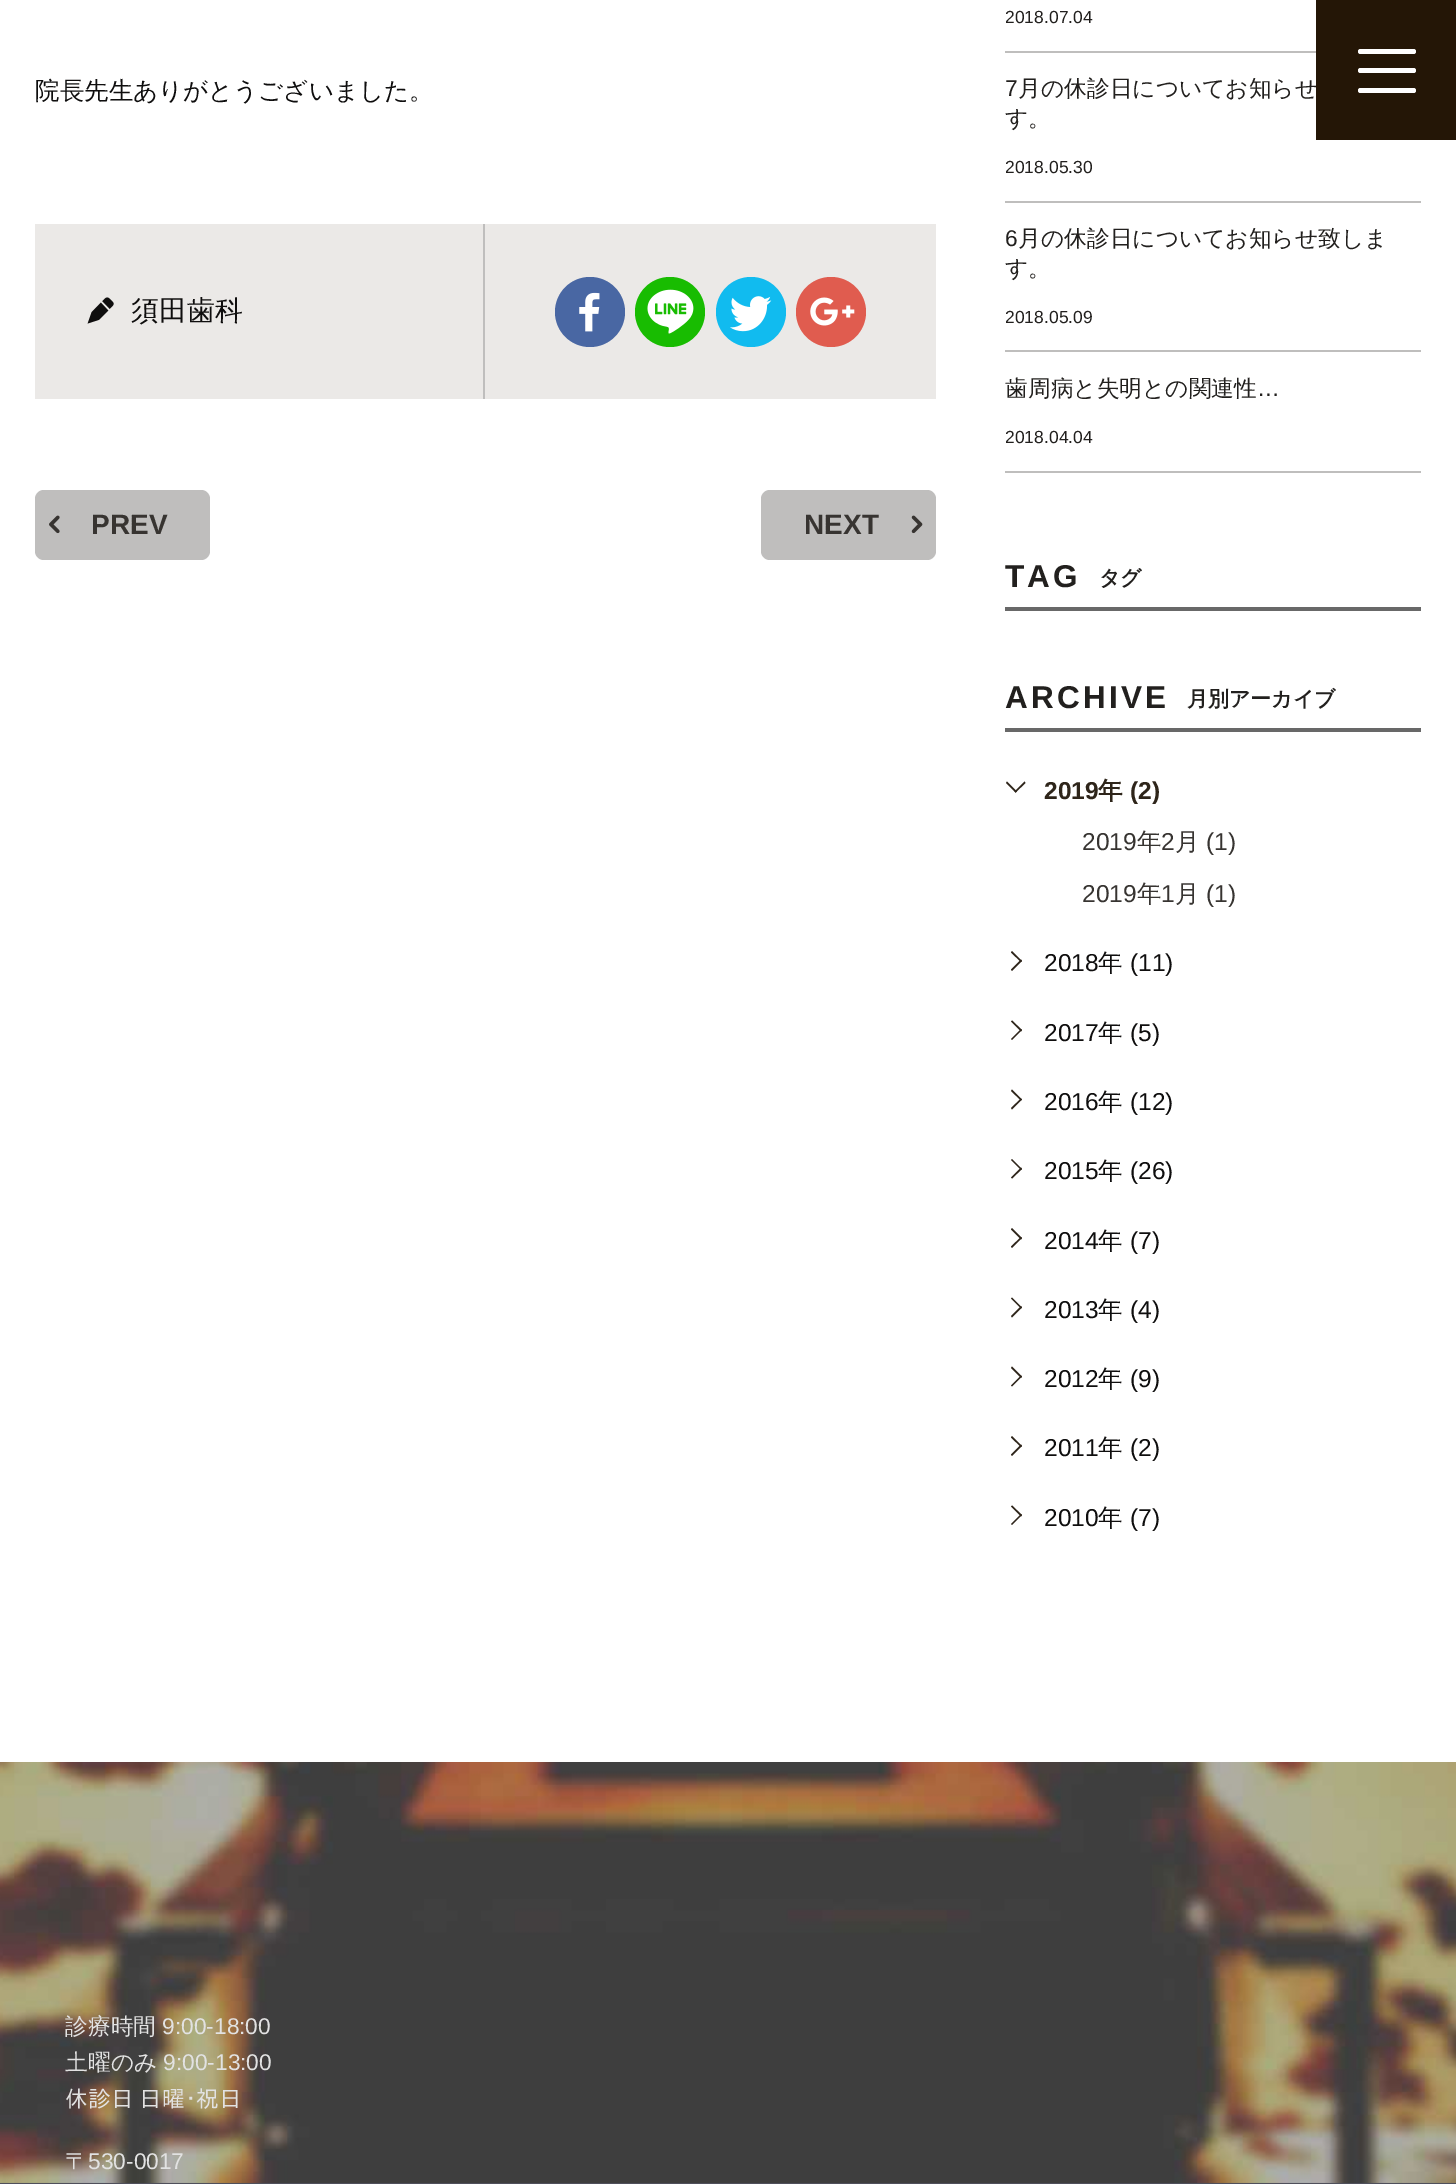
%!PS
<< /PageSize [1456 2184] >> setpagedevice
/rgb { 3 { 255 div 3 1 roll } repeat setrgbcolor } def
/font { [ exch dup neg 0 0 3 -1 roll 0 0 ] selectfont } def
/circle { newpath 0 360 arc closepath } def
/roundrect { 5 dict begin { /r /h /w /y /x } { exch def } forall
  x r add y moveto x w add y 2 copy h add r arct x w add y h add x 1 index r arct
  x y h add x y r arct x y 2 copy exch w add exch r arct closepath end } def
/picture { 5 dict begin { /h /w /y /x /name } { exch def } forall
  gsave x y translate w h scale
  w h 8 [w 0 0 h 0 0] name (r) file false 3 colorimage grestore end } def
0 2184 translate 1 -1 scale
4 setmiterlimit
255 255 255 rgb
0 0 1456 2184 rectfill
235 233 231 rgb
35 224 901 175 rectfill
191 190 189 rgb
483 224 2 175 rectfill
(img/1.rgb) 87 297 27 27 picture
73 103 163 rgb
590 312 35 circle fill
(img/2.rgb) 579 292 21 40 picture
24 188 1 rgb
670 312 35 circle fill
(img/3.rgb) 647 289 47 45 picture
17 187 239 rgb
751 312 35 circle fill
(img/4.rgb) 730 296 42 36 picture
224 92 79 rgb
831 312 35 circle fill
(img/5.rgb) 810 297 45 29 picture
191 190 189 rgb
35 490 175 70 9 roundrect fill
(img/6.rgb) 49 515 11 19 picture
761 490 175 70 9 roundrect fill
(img/7.rgb) 911 515 12 19 picture
[
  [1005 51 311 2 191 190 189]
  [1005 201 416 2 191 190 189]
  [1005 350 416 2 191 190 189]
  [1005 471 416 2 191 190 189]
  [1005 607 416 4 104 104 104]
  [1005 728 416 4 104 104 104]
] { aload pop rgb rectfill } forall
46 37 26 rgb
1024.5 781.5 moveto 1025.5 783 lineto 1015.5 792.5 lineto 1014.5 791.5 lineto closepath fill
1007 781.5 moveto 1017 791.5 lineto 1015.5 792.5 lineto 1006 783 lineto closepath fill
1011 952.5 moveto 1012 951 lineto 1022 961 lineto 1021 962 lineto closepath fill
1011 969.5 moveto 1021 959.5 lineto 1022 961 lineto 1012 971 lineto closepath fill
1011 1021.5 moveto 1012 1020.5 lineto 1022 1030 lineto 1021 1031.5 lineto closepath fill
1011 1039 moveto 1021 1029 lineto 1022 1030 lineto 1012 1040 lineto closepath fill
1011 1091 moveto 1012 1089.5 lineto 1022 1099.5 lineto 1021 1100.5 lineto closepath fill
1011 1108 moveto 1021 1098.5 lineto 1022 1099.5 lineto 1012 1109.5 lineto closepath fill
1011 1160 moveto 1012 1159 lineto 1022 1169 lineto 1021 1170 lineto closepath fill
1011 1177.5 moveto 1021 1167.5 lineto 1022 1169 lineto 1012 1178.5 lineto closepath fill
1011 1229.5 moveto 1012 1228 lineto 1022 1238 lineto 1021 1239.5 lineto closepath fill
1011 1246.5 moveto 1021 1237 lineto 1022 1238 lineto 1012 1248 lineto closepath fill
1011 1298.5 moveto 1012 1297.5 lineto 1022 1307.5 lineto 1021 1308.5 lineto closepath fill
1011 1316 moveto 1021 1306 lineto 1022 1307.5 lineto 1012 1317.5 lineto closepath fill
1011 1368 moveto 1012 1366.5 lineto 1022 1376.5 lineto 1021 1378 lineto closepath fill
1011 1385.5 moveto 1021 1375.5 lineto 1022 1376.5 lineto 1012 1386.5 lineto closepath fill
1011 1437.5 moveto 1012 1436 lineto 1022 1446 lineto 1021 1447 lineto closepath fill
1011 1454.5 moveto 1021 1444.5 lineto 1022 1446 lineto 1012 1456 lineto closepath fill
1011 1506.5 moveto 1012 1505.5 lineto 1022 1515 lineto 1021 1516.5 lineto closepath fill
1011 1524 moveto 1021 1514 lineto 1022 1515 lineto 1012 1525 lineto closepath fill
79 80 91 rgb
0 2182 1456 2 rectfill
(img/8.rgb) 0 1762 1456 421 picture
/WenQuanYiZenHei-Medium 24.5 font
15 14 14 rgb
35 99 moveto (院長先生ありがとうございました。) show
/WenQuanYiZenHei-Medium 28 font
131 320 moveto (須田歯科) show
/LiberationSans-Bold 28 font
55 52 49 rgb
91 534 moveto (PREV) show
804 534 moveto (NEXT) show
/LiberationSans-Regular 17.5 font
34 32 30 rgb
1005 23 moveto (2018.07.04) show
/LiberationSans-Regular 22.75 font
1005 96 moveto (7) show
/WenQuanYiZenHei-Medium 22.75 font
1018 96 moveto (月の休診日についてお知らせ) show
1005 126 moveto (す。) show
/LiberationSans-Regular 17.5 font
1005 173 moveto (2018.05.30) show
/LiberationSans-Regular 22.75 font
1005 246 moveto (6) show
/WenQuanYiZenHei-Medium 22.75 font
1018 246 moveto (月の休診日についてお知らせ致しま) show
1005 276 moveto (す。) show
/LiberationSans-Regular 17.5 font
1005 323 moveto (2018.05.09) show
/WenQuanYiZenHei-Medium 22.75 font
1005 396 moveto (歯周病と失明との関連性) show
/LiberationSans-Regular 22.75 font
1257 396 moveto (…) show
/LiberationSans-Regular 17.5 font
1005 443 moveto (2018.04.04) show
/LiberationSans-Bold 31.5 font
1005 587 moveto 3.25 0 (TAG) ashow
/WenQuanYiZenHei-Bold 21 font
1099 585 moveto (タグ) show
/LiberationSans-Bold 31.5 font
1005 708 moveto 3.25 0 (ARCHIVE) ashow
/WenQuanYiZenHei-Bold 21 font
1187 706 moveto (月別アーカイブ) show
/LiberationSans-Bold 24.5 font
46 37 26 rgb
1044 799 moveto (2019) show
/WenQuanYiZenHei-Bold 24.5 font
1098 799 moveto (年) show
/LiberationSans-Bold 24.5 font
1130 799 moveto (\(2\)) show
/LiberationSans-Regular 24.5 font
55 52 49 rgb
1082 850 moveto (2019) show
/WenQuanYiZenHei-Medium 24.5 font
1137 850 moveto (年) show
/LiberationSans-Regular 24.5 font
1161 850 moveto (2) show
/WenQuanYiZenHei-Medium 24.5 font
1175 850 moveto (月) show
/LiberationSans-Regular 24.5 font
1206 850 moveto (\(1\)) show
1082 902 moveto (2019) show
/WenQuanYiZenHei-Medium 24.5 font
1137 902 moveto (年) show
/LiberationSans-Regular 24.5 font
1161 902 moveto (1) show
/WenQuanYiZenHei-Medium 24.5 font
1175 902 moveto (月) show
/LiberationSans-Regular 24.5 font
1206 902 moveto (\(1\)) show
15 14 14 rgb
1044 971 moveto (2018) show
/WenQuanYiZenHei-Medium 24.5 font
1098 971 moveto (年) show
/LiberationSans-Regular 24.5 font
1130 971 moveto (\(11\)) show
1044 1041 moveto (2017) show
/WenQuanYiZenHei-Medium 24.5 font
1098 1041 moveto (年) show
/LiberationSans-Regular 24.5 font
1130 1041 moveto (\(5\)) show
1044 1110 moveto (2016) show
/WenQuanYiZenHei-Medium 24.5 font
1098 1110 moveto (年) show
/LiberationSans-Regular 24.5 font
1130 1110 moveto (\(12\)) show
1044 1179 moveto (2015) show
/WenQuanYiZenHei-Medium 24.5 font
1098 1179 moveto (年) show
/LiberationSans-Regular 24.5 font
1130 1179 moveto (\(26\)) show
1044 1249 moveto (2014) show
/WenQuanYiZenHei-Medium 24.5 font
1098 1249 moveto (年) show
/LiberationSans-Regular 24.5 font
1130 1249 moveto (\(7\)) show
1044 1318 moveto (2013) show
/WenQuanYiZenHei-Medium 24.5 font
1098 1318 moveto (年) show
/LiberationSans-Regular 24.5 font
1130 1318 moveto (\(4\)) show
1044 1387 moveto (2012) show
/WenQuanYiZenHei-Medium 24.5 font
1098 1387 moveto (年) show
/LiberationSans-Regular 24.5 font
1130 1387 moveto (\(9\)) show
1044 1456 moveto (2011) show
/WenQuanYiZenHei-Medium 24.5 font
1098 1456 moveto (年) show
/LiberationSans-Regular 24.5 font
1130 1456 moveto (\(2\)) show
1044 1526 moveto (2010) show
/WenQuanYiZenHei-Medium 24.5 font
1098 1526 moveto (年) show
/LiberationSans-Regular 24.5 font
1130 1526 moveto (\(7\)) show
36 22 6 rgb
1316 0 140 140 rectfill
255 255 255 rgb
1358 49 58 5 2.5 roundrect fill
1358 68 58 5 2.5 roundrect fill
1358 88 58 5 2.5 roundrect fill
/WenQuanYiZenHei-Medium 22.75 font
226 226 226 rgb
65 2034 moveto (診療時間) show
/LiberationSans-Regular 22.75 font
162 2034 moveto (9:00-18:00) show
/WenQuanYiZenHei-Medium 22.75 font
65 2070 moveto (土曜のみ) show
/LiberationSans-Regular 22.75 font
163 2070 moveto (9:00-13:00) show
/IPAPGothic-Regular 22.75 font
65 2107 moveto (休診日 日曜･祝日) show
/WenQuanYiZenHei-Medium 22.75 font
65 2169 moveto (〒) show
/LiberationSans-Regular 22.75 font
88 2169 moveto (530-0017) show
showpage
